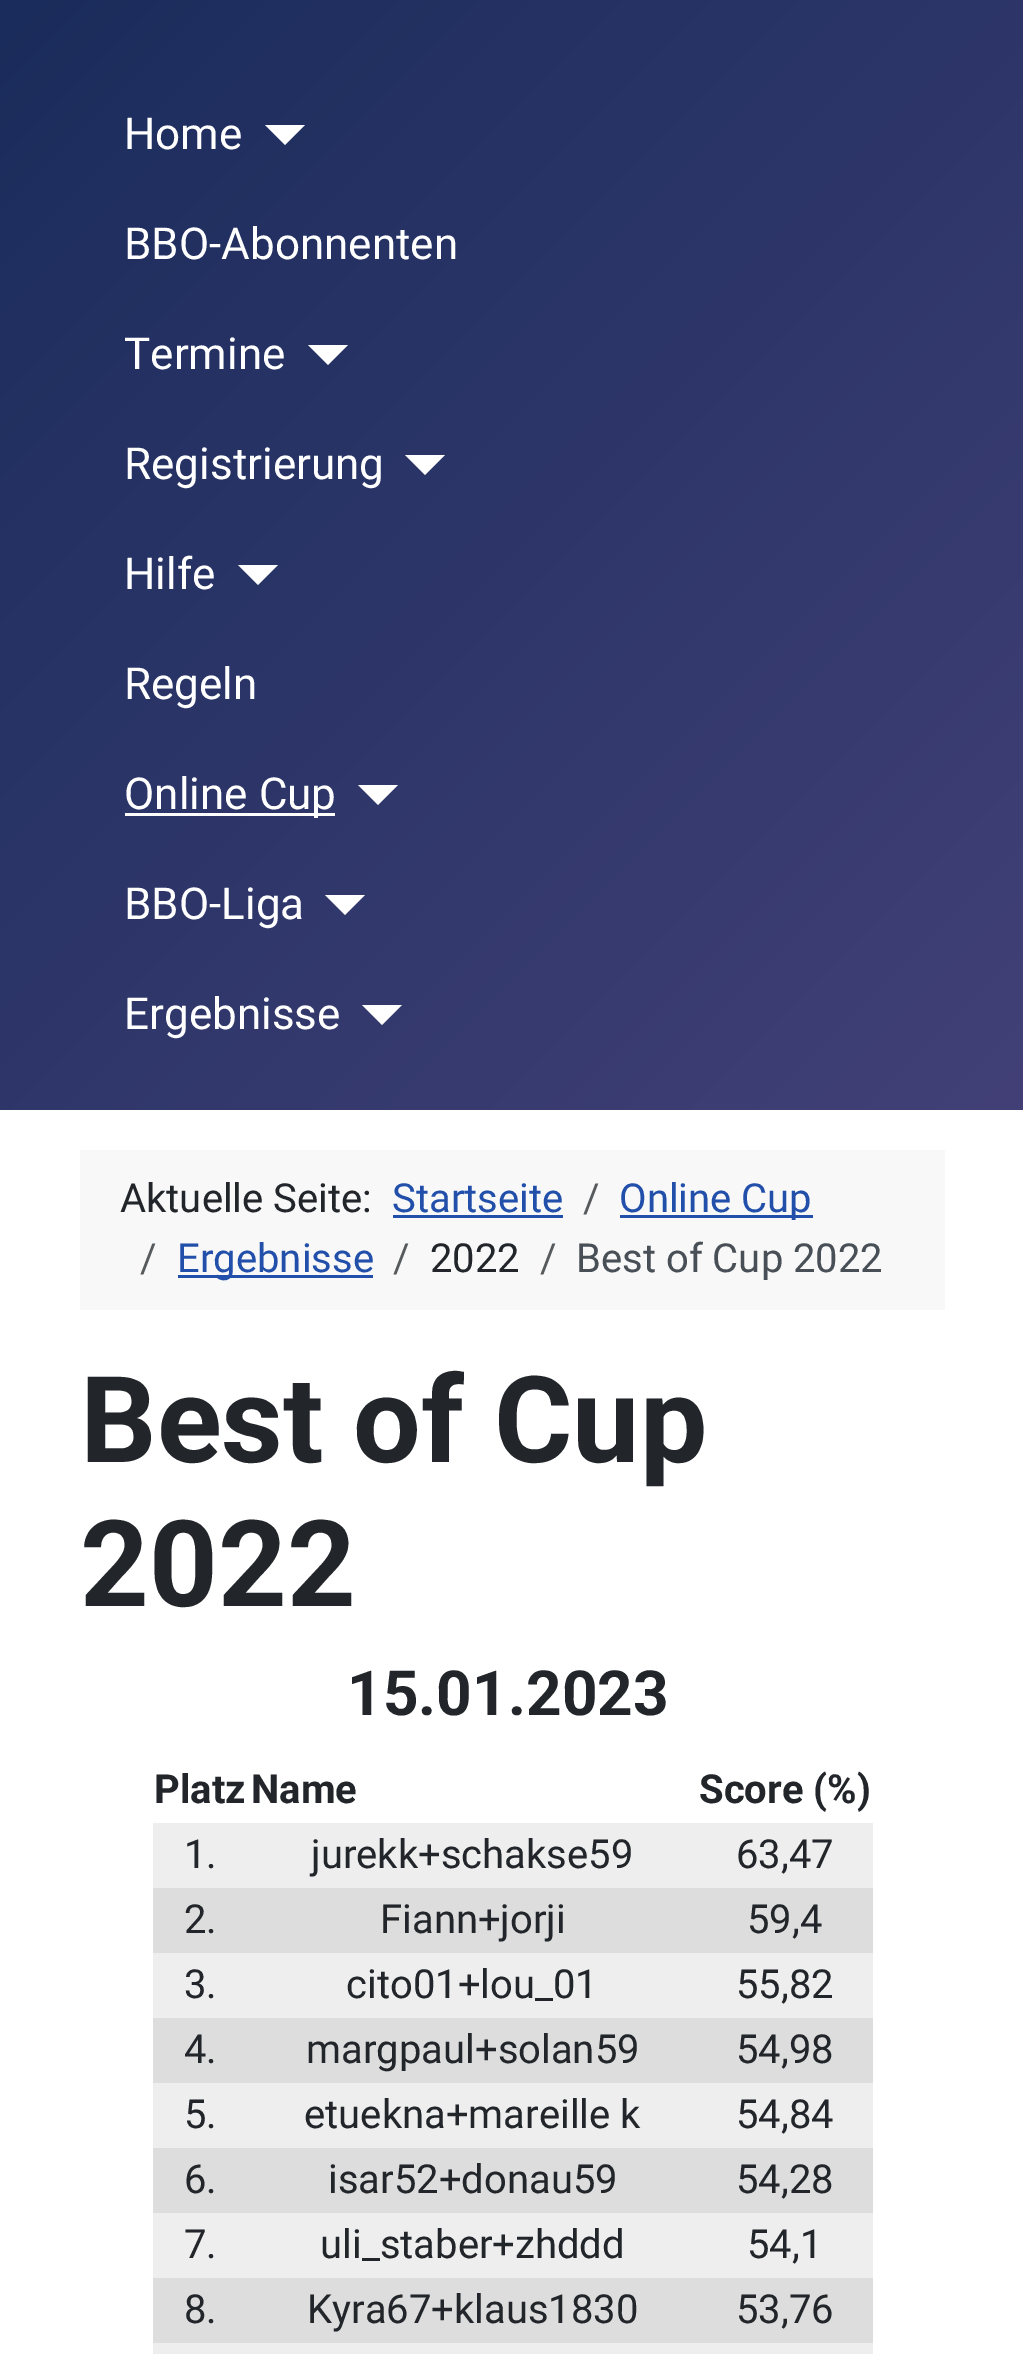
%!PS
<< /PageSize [1023 2354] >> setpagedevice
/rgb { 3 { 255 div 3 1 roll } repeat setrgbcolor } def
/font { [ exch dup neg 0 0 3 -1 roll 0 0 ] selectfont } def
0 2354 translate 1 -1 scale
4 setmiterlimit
255 255 255 rgb
0 0 1023 2354 rectfill
gsave 0 0 moveto 1023 0 lineto 1023 1110 lineto 0 1110 lineto closepath clip newpath
<< /ShadingType 2 /ColorSpace /DeviceRGB /Coords [-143 -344 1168 967] /Extend [true true] /Function << /FunctionType 2 /Domain [0 1] /C0 [0.067 0.157 0.333] /C1 [0.259 0.251 0.467] /N 1 >> >> shfill grestore
265 125 moveto 305 125 lineto 285 145 lineto closepath fill
308 345 moveto 348 345 lineto 328 365 lineto closepath fill
405 455 moveto 445 455 lineto 425 475 lineto closepath fill
238 565 moveto 278 565 lineto 258 585 lineto closepath fill
125 813 210 3 rectfill
358 785 moveto 398 785 lineto 378 805 lineto closepath fill
325 895 moveto 365 895 lineto 345 915 lineto closepath fill
362 1005 moveto 402 1005 lineto 382 1025 lineto closepath fill
[
  [80 1150 865 160 248 248 248]
  [393 1215 170 3 34 79 170]
  [620 1215 193 3 34 79 170]
  [178 1275 195 3 34 79 170]
  [153 1823 720 65 238 238 238]
  [153 1888 720 65 221 221 221]
  [153 1953 720 65 238 238 238]
  [153 2018 720 65 221 221 221]
  [153 2083 720 65 238 238 238]
  [153 2148 720 65 221 221 221]
  [153 2213 720 65 238 238 238]
  [153 2278 720 65 221 221 221]
  [153 2343 720 11 238 238 238]
] { aload pop rgb rectfill } forall
/Roboto-Regular 44 font
255 255 255 rgb
[
  [(Home) 124 149]
  [(BBO-Abonnenten) 124 259]
  [(Termine) 124 369]
  [(Registrierung) 124 479]
  [(Hilfe) 124 589]
  [(Regeln) 124 699]
  [(Online Cup) 124 809]
  [(BBO-Liga) 124 919]
  [(Ergebnisse) 124 1029]
] { aload pop moveto show } forall
/Roboto-Regular 40 font
34 38 42 rgb
120 1212 moveto (Aktuelle Seite:) show
34 79 170 rgb
392 1212 moveto (Startseite) show
88 91 94 rgb
583 1212 moveto (/) show
34 79 170 rgb
619 1212 moveto (Online Cup) show
88 91 94 rgb
140 1272 moveto (/) show
34 79 170 rgb
177 1272 moveto (Ergebnisse) show
88 91 94 rgb
393 1272 moveto (/) show
34 38 42 rgb
430 1272 moveto (2022) show
88 91 94 rgb
540 1272 moveto (/) show
72 79 86 rgb
576 1272 moveto (Best of Cup 2022) show
/Roboto-Bold 120 font
34 38 42 rgb
80 1462 moveto (Best of Cup) show
80 1606 moveto (2022) show
/Roboto-Bold 62.25 font
347 1715 moveto (15.01.2023) show
/Roboto-Bold 40 font
[
  [(Platz) 154 1803]
  [(Name) 251 1803]
  [(Score \(%\)) 699 1803]
] { aload pop moveto show } forall
/Roboto-Regular 40 font
[
  [(1.) 184 1868]
  [(jurekk+schakse59) 311 1868]
  [(63,47) 736 1868]
  [(2.) 184 1933]
  [(Fiann+jorji) 380 1933]
  [(59,4) 747 1933]
  [(3.) 184 1998]
  [(cito01+lou_01) 346 1998]
  [(55,82) 736 1998]
  [(4.) 184 2063]
  [(margpaul+solan59) 306 2063]
  [(54,98) 736 2063]
  [(5.) 184 2128]
  [(etuekna+mareille k) 304 2128]
  [(54,84) 736 2128]
  [(6.) 184 2193]
  [(isar52+donau59) 328 2193]
  [(54,28) 736 2193]
  [(7.) 184 2258]
  [(uli_staber+zhddd) 320 2258]
  [(54,1) 747 2258]
  [(8.) 184 2323]
  [(Kyra67+klaus1830) 307 2323]
  [(53,76) 736 2323]
] { aload pop moveto show } forall
showpage
